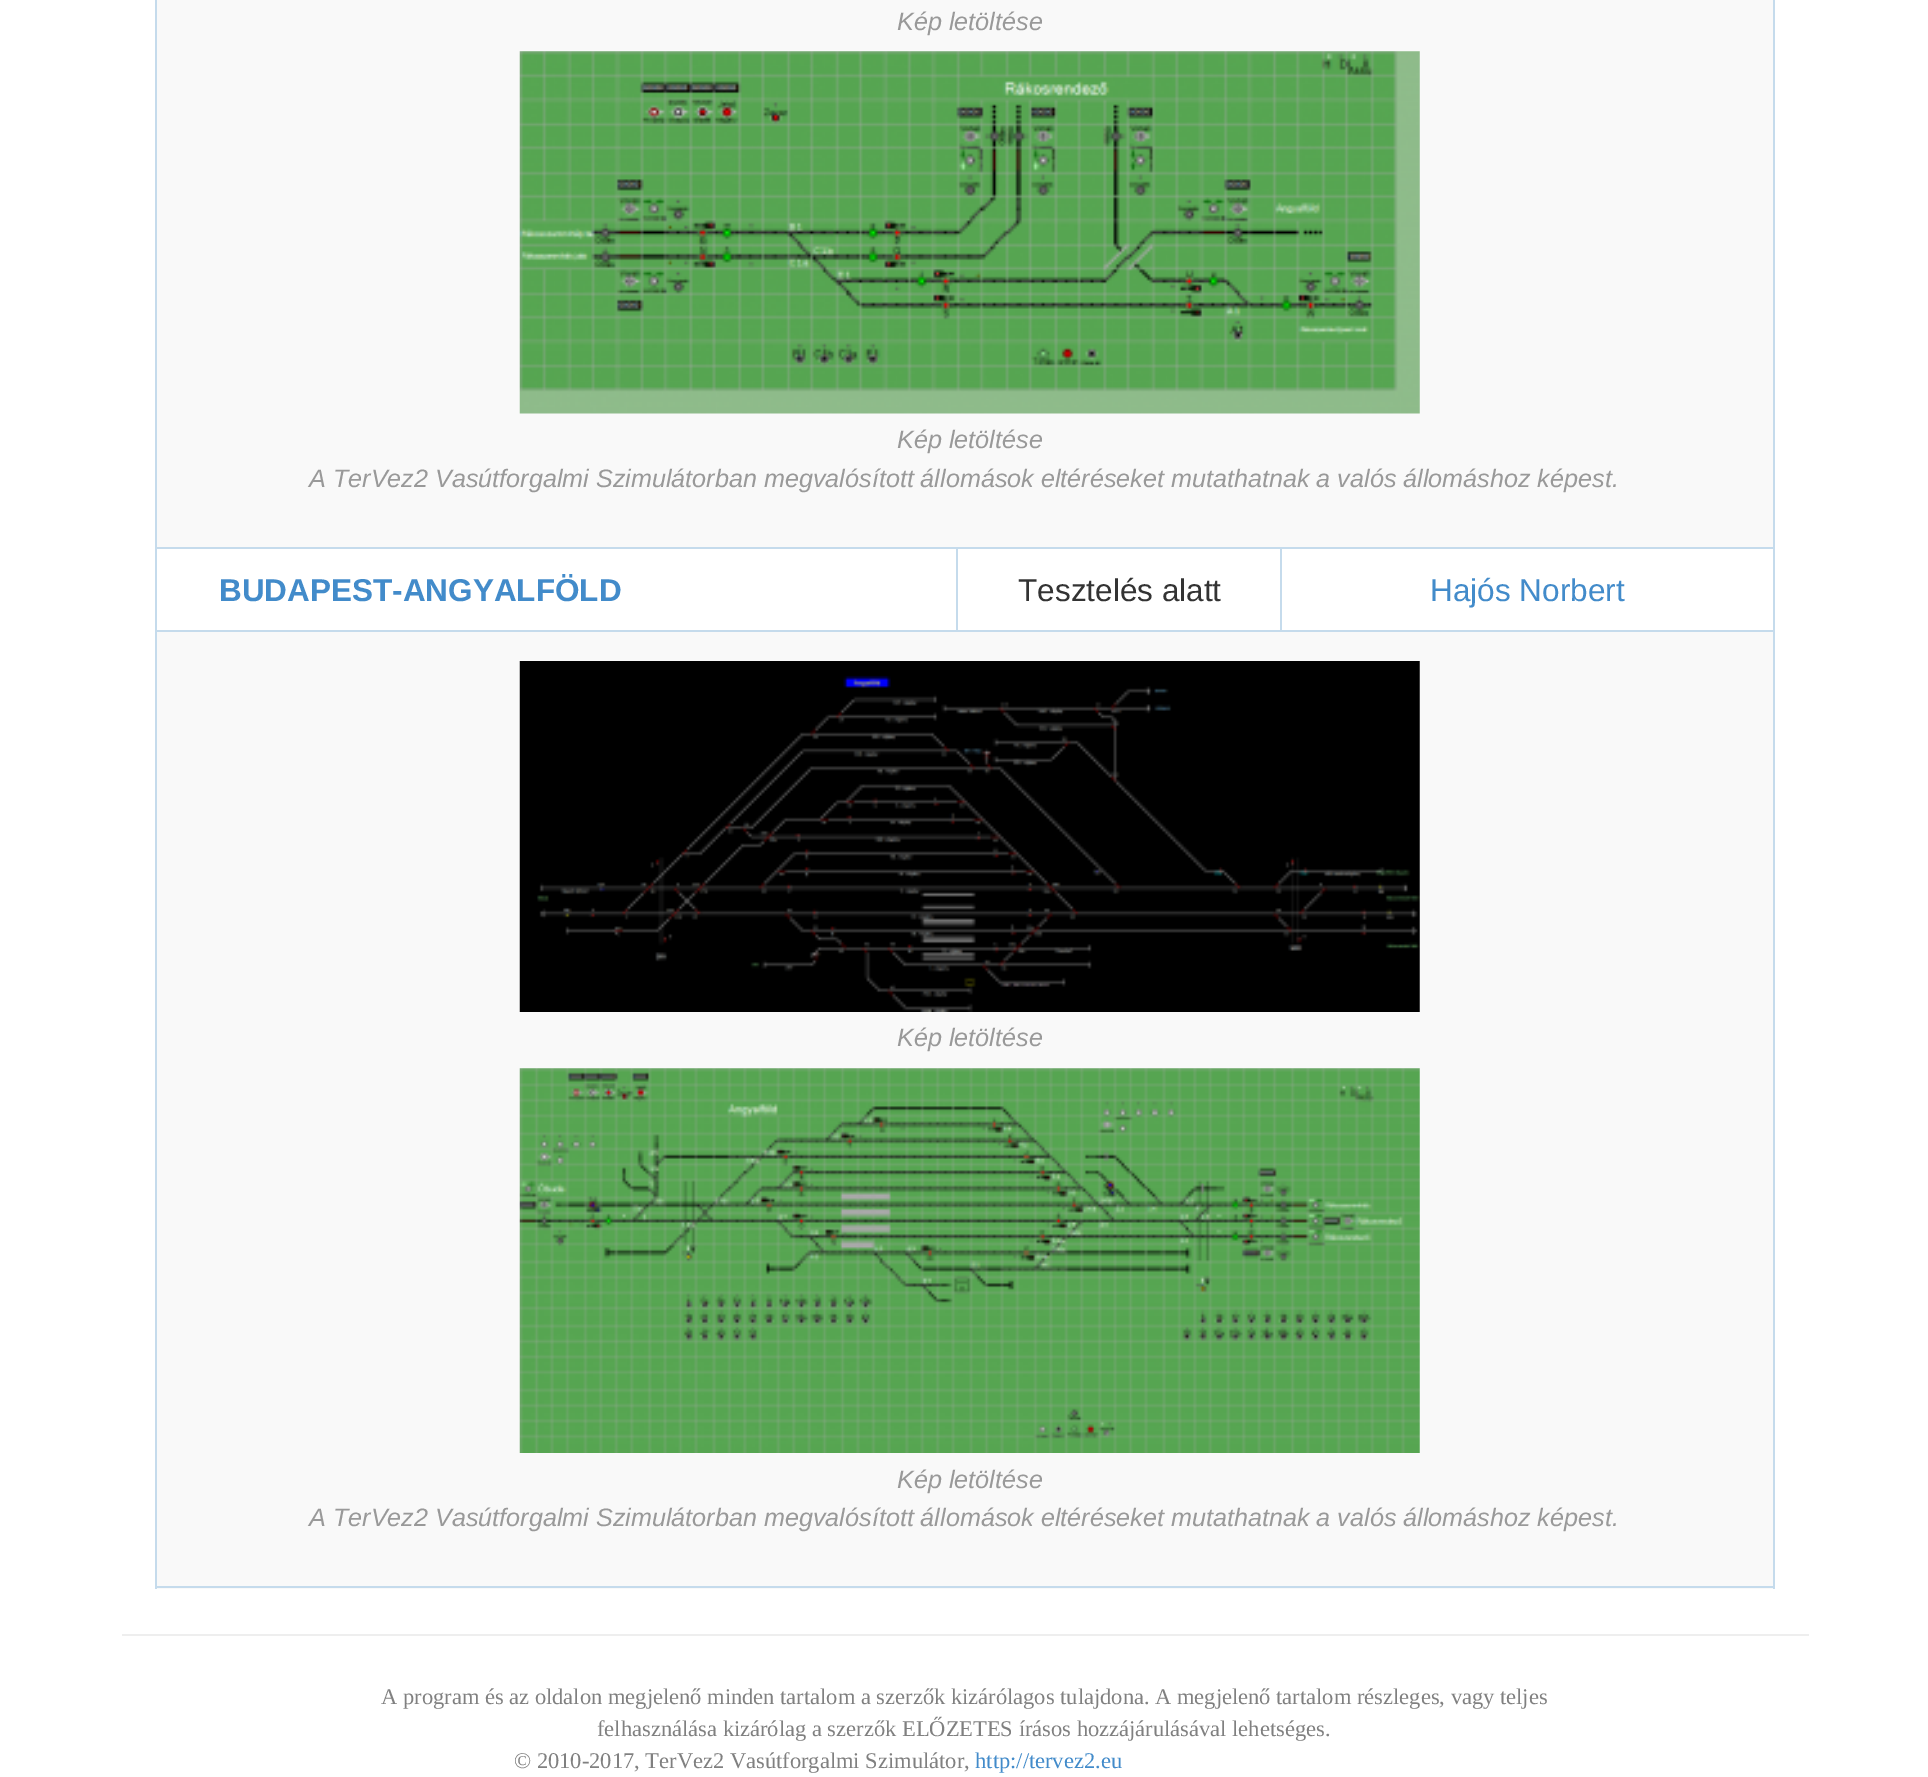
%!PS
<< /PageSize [1928 1777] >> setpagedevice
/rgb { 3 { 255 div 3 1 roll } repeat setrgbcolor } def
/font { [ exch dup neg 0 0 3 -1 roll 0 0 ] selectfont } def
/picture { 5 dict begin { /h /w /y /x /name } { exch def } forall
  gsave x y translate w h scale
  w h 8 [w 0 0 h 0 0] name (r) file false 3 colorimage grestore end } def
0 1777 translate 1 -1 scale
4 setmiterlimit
255 255 255 rgb
0 0 1928 1777 rectfill
[
  [1773 0 2 547 197 219 236]
  [157 632 1616 957 249 249 249]
  [155 1586 1620 2 197 219 236]
  [155 0 2 547 197 219 236]
  [157 0 1616 547 249 249 249]
  [1773 547 2 1042 197 219 236]
  [1280 630 495 2 197 219 236]
  [1280 547 2 85 197 219 236]
  [956 630 327 2 197 219 236]
  [956 547 2 85 197 219 236]
  [155 630 2 959 197 219 236]
  [155 630 804 2 197 219 236]
  [155 547 2 85 197 219 236]
  [155 547 1620 2 197 219 236]
] { aload pop rgb rectfill } forall
(img/1.rgb) 519 51 901 363 picture
(img/2.rgb) 519 661 901 351 picture
(img/3.rgb) 519 1068 901 385 picture
238 238 238 rgb
122 1634 1687 2 rectfill
/LiberationSans-Italic 25.2 font
153 153 153 rgb
897 30 moveto (Kép letöltése) show
897 448 moveto (Kép letöltése) show
309 487 moveto -0.1 0 32 (A TerVez2 Vasútforgalmi Szimulátorban megvalósított állomások eltéréseket mutathatnak a valós állomáshoz képest.) widthshow
/LiberationSans-Bold 31.5 font
66 139 202 rgb
219 601 moveto (BUDAPEST-ANGYALFÖLD) show
/LiberationSans-Regular 31.5 font
51 51 51 rgb
1018 601 moveto (Tesztelés alatt) show
66 139 202 rgb
1430 601 moveto (Hajós Norbert) show
/LiberationSans-Italic 25.2 font
153 153 153 rgb
897 1046 moveto (Kép letöltése) show
897 1488 moveto (Kép letöltése) show
309 1526 moveto -0.1 0 32 (A TerVez2 Vasútforgalmi Szimulátorban megvalósított állomások eltéréseket mutathatnak a valós állomáshoz képest.) widthshow
/LiberationSerif-Regular 22.5 font
128 128 128 rgb
[
  [(A program és az oldalon megjelenő minden tartalom a szerzők kizárólagos tulajdona. A megjelenő tartalom részleges, vagy teljes) 381 1704]
  [(felhasználása kizárólag a szerzők ELŐZETES írásos hozzájárulásával lehetséges.) 597 1736]
  [(© 2010-2017, TerVez2 Vasútforgalmi Szimulátor,) 514 1768]
] { aload pop moveto show } forall
66 139 202 rgb
975 1768 moveto (http://tervez2.eu) show
showpage
